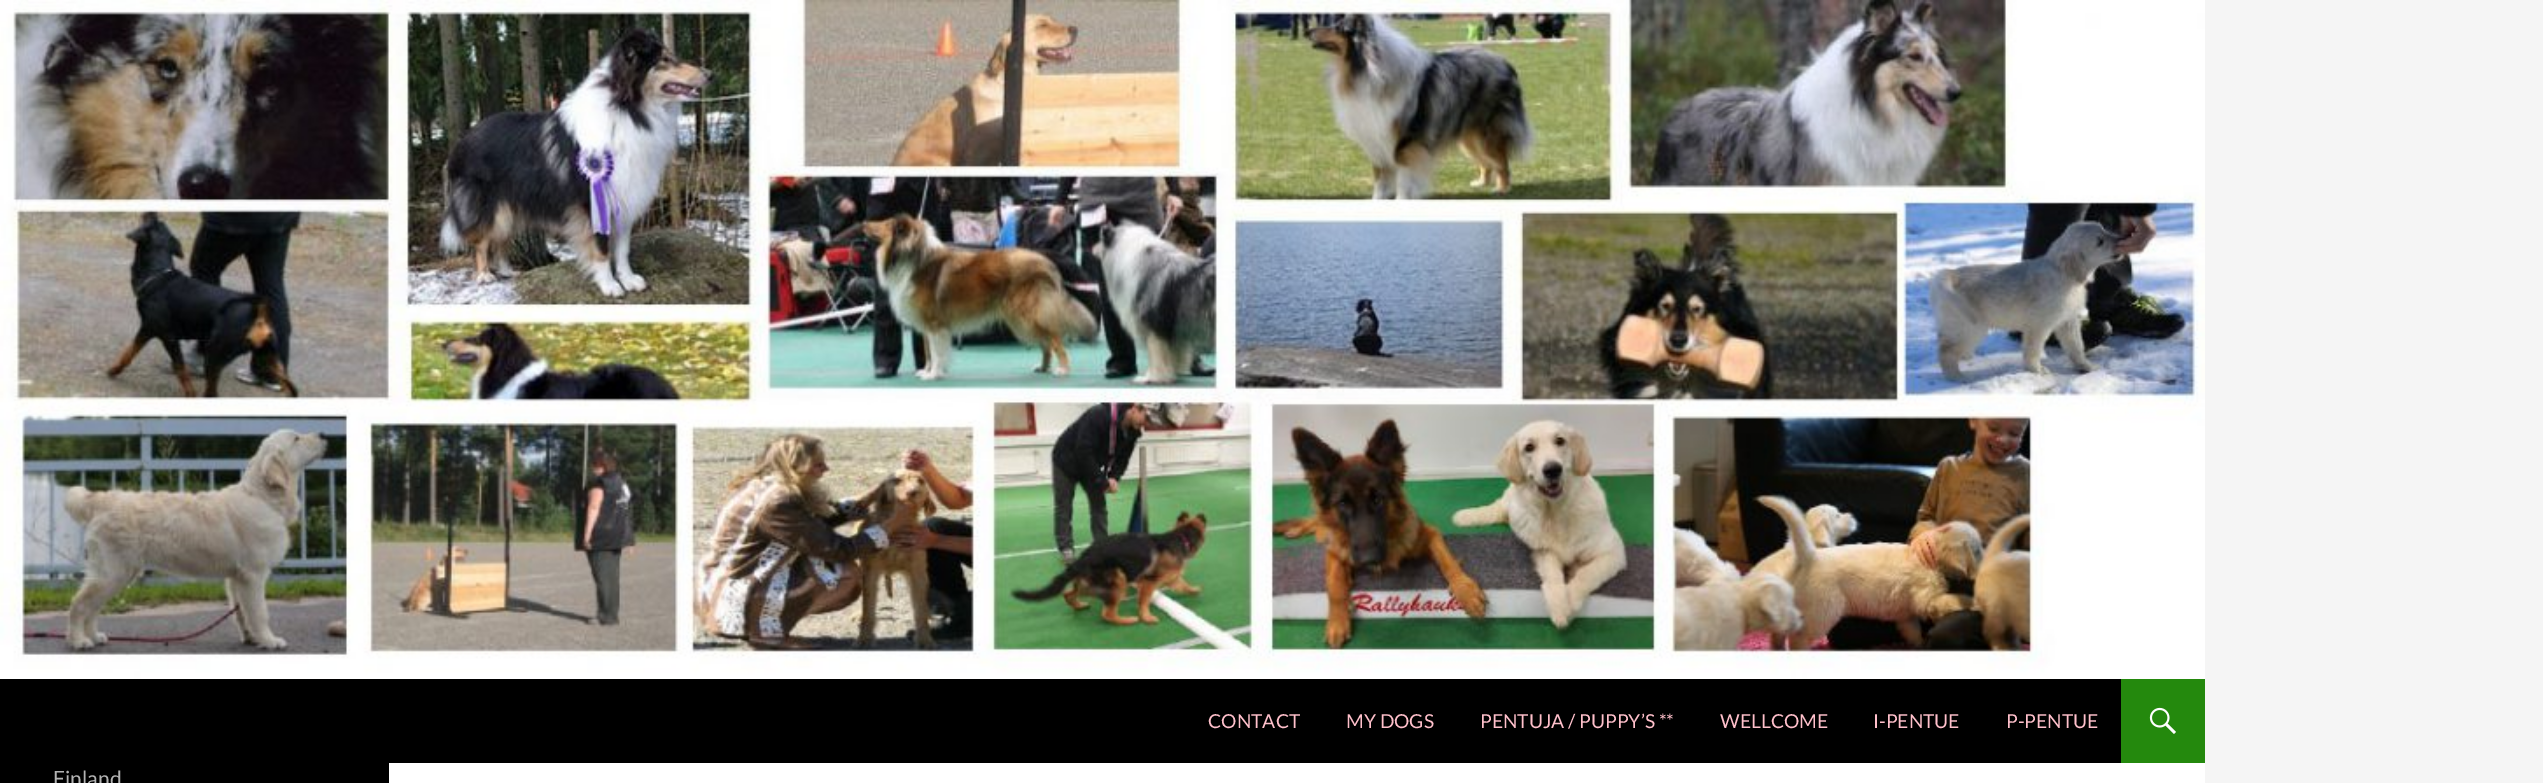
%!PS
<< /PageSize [2543 783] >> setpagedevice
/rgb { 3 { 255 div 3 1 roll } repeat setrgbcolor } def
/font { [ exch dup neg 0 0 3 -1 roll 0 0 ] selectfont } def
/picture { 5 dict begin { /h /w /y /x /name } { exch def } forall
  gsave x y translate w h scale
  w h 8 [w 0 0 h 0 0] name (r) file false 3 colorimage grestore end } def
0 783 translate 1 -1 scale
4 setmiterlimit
245 245 245 rgb
0 0 2543 783 rectfill
255 255 255 rgb
389 763 1816 20 rectfill
(img/1.rgb) 0 0 2205 679 picture
0 0 0 rgb
0 679 2121 84 rectfill
36 137 13 rgb
2121 679 84 84 rectfill
(img/2.rgb) 2149 707 27 27 picture
0 0 0 rgb
0 763 389 20 rectfill
/Lato-Regular 19.25 font
255 192 203 rgb
[
  [(CONTACT) 1208 728]
  [(MY DOGS) 1346 728]
  [(PENTUJA / PUPPY’S **) 1480 728]
  [(WELLCOME) 1720 728]
  [(I-PENTUE) 1873 728]
  [(P-PENTUE) 2006 728]
] { aload pop moveto show } forall
/Lato-Regular 21 font
179 179 179 rgb
53 786 moveto (Finland) show
showpage
